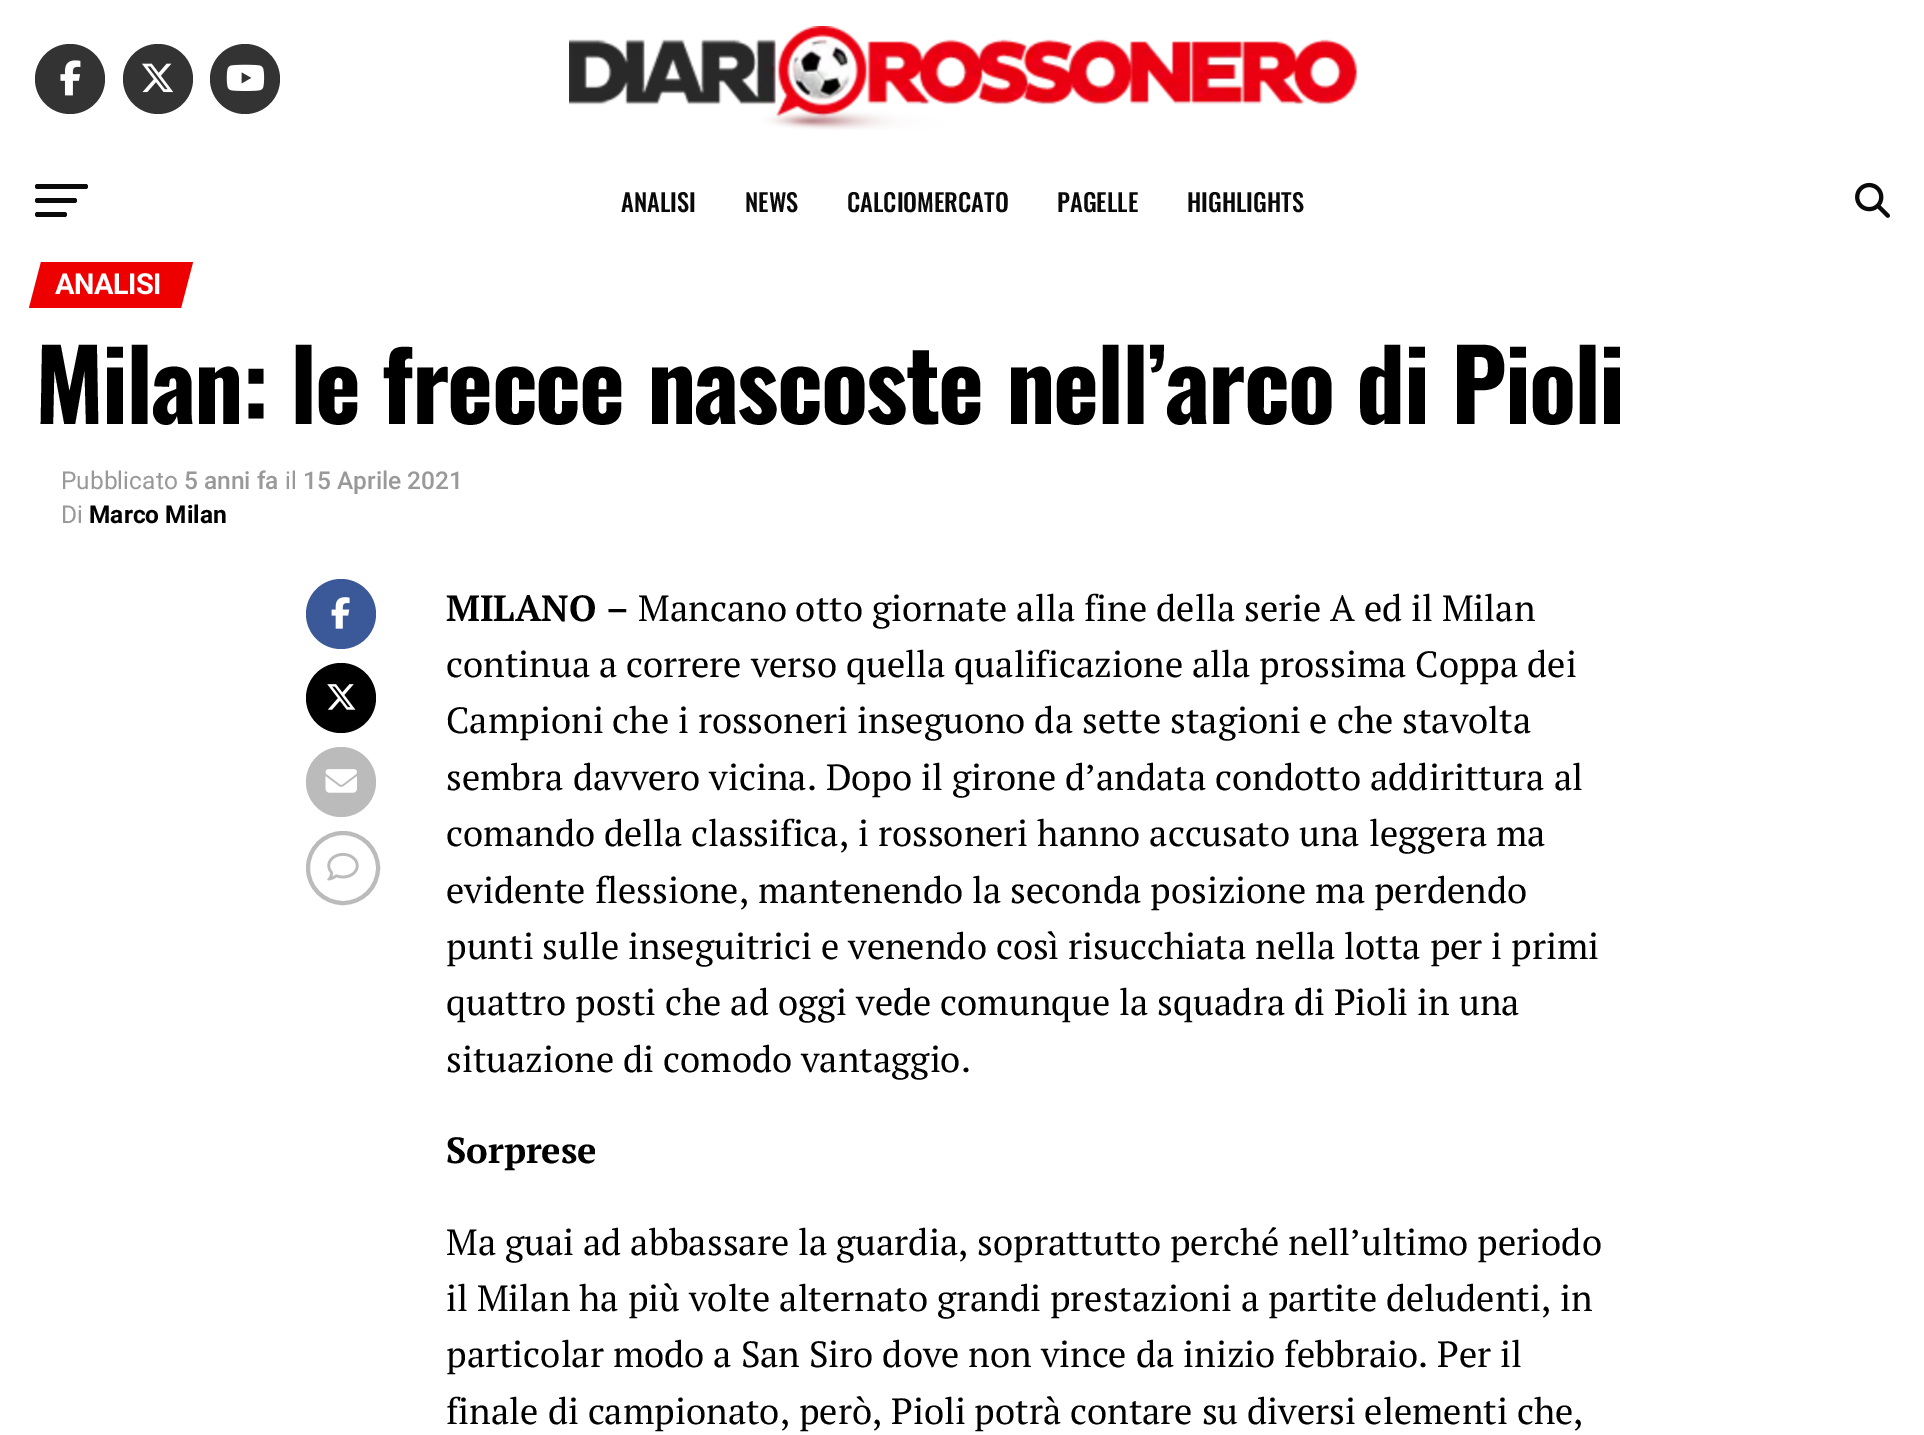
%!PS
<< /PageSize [1924 1435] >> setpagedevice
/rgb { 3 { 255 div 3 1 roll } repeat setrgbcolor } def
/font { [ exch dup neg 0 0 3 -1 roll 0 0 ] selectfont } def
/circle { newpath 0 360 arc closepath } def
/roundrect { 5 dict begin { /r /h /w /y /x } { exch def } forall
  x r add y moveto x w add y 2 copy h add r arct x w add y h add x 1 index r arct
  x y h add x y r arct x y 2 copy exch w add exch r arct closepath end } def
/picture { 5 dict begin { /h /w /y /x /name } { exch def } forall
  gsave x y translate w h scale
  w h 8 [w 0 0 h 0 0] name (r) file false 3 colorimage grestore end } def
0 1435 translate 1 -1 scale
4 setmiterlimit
255 255 255 rgb
0 0 1924 1435 rectfill
51 51 51 rgb
70 79 35 circle fill
(img/1.rgb) 60 60 21 36 picture
158 79 35 circle fill
(img/2.rgb) 142 63 32 30 picture
245 79 35 circle fill
(img/3.rgb) 226 64 39 27 picture
(img/4.rgb) 569 26 788 104 picture
10 10 10 rgb
35 184 53 5 2.5 roundrect fill
35 198 42 5 2.5 roundrect fill
35 212 32 5 2.5 roundrect fill
(img/5.rgb) 1855 182 35 36 picture
238 0 0 rgb
41 262 moveto 193 262 lineto 181 308 lineto 29 308 lineto closepath fill
59 89 152 rgb
341 614 35 circle fill
(img/6.rgb) 331 597 19 32 picture
0 0 0 rgb
341 698 35 circle fill
(img/7.rgb) 327 684 29 26 picture
187 187 187 rgb
341 782 35 circle fill
(img/8.rgb) 325 769 32 24 picture
4 setlinewidth
343 868 35 circle stroke
(img/9.rgb) 327 852 32 29 picture
/Oswald-Medium 24.5 font
10 10 10 rgb
[
  [(ANALISI) 621 212]
  [(NEWS) 745 212]
  [(CALCIOMERCATO) 847 212]
  [(PAGELLE) 1057 212]
  [(HIGHLIGHTS) 1187 212]
] { aload pop moveto show } forall
/Roboto-Bold 29 font
255 255 255 rgb
55 294 moveto -0.5 0 (ANALISI) ashow
/Oswald-Bold 98 font
0 0 0 rgb
35 424 moveto -1.95 0 (Milan: le frecce nascoste nell’arco di Pioli) ashow
/Roboto-Regular 24.5 font
153 153 153 rgb
61 489 moveto (Pubblicato) show
/Roboto-Medium 24.5 font
184 489 moveto (5 anni fa) show
/Roboto-Regular 24.5 font
285 489 moveto (il) show
/Roboto-Medium 24.5 font
303 489 moveto (15 Aprile 2021) show
/Roboto-Regular 24.5 font
61 523 moveto (Di) show
/Roboto-Bold 24.5 font
0 0 0 rgb
89 523 moveto (Marco Milan) show
/PTSerif-Bold 36.4 font
446 621 moveto (MILANO –) show
/PTSerif-Regular 36.4 font
[
  [(Mancano otto giornate alla fine della serie A ed il Milan) 638 621]
  [(continua a correre verso quella qualificazione alla prossima Coppa dei) 446 677]
  [(Campioni che i rossoneri inseguono da sette stagioni e che stavolta) 446 733]
  [(sembra davvero vicina. Dopo il girone d’andata condotto addirittura al) 446 790]
  [(comando della classifica, i rossoneri hanno accusato una leggera ma) 446 846]
  [(evidente flessione, mantenendo la seconda posizione ma perdendo) 446 903]
  [(punti sulle inseguitrici e venendo così risucchiata nella lotta per i primi) 446 959]
  [(quattro posti che ad oggi vede comunque la squadra di Pioli in una) 446 1015]
  [(situazione di comodo vantaggio.) 446 1072]
] { aload pop moveto show } forall
/PTSerif-Bold 36.4 font
446 1163 moveto (Sorprese) show
/PTSerif-Regular 36.4 font
[
  [(Ma guai ad abbassare la guardia, soprattutto perché nell’ultimo periodo) 446 1255]
  [(il Milan ha più volte alternato grandi prestazioni a partite deludenti, in) 446 1311]
  [(particolar modo a San Siro dove non vince da inizio febbraio. Per il) 446 1367]
  [(finale di campionato, però, Pioli potrà contare su diversi elementi che,) 446 1424]
] { aload pop moveto show } forall
showpage
